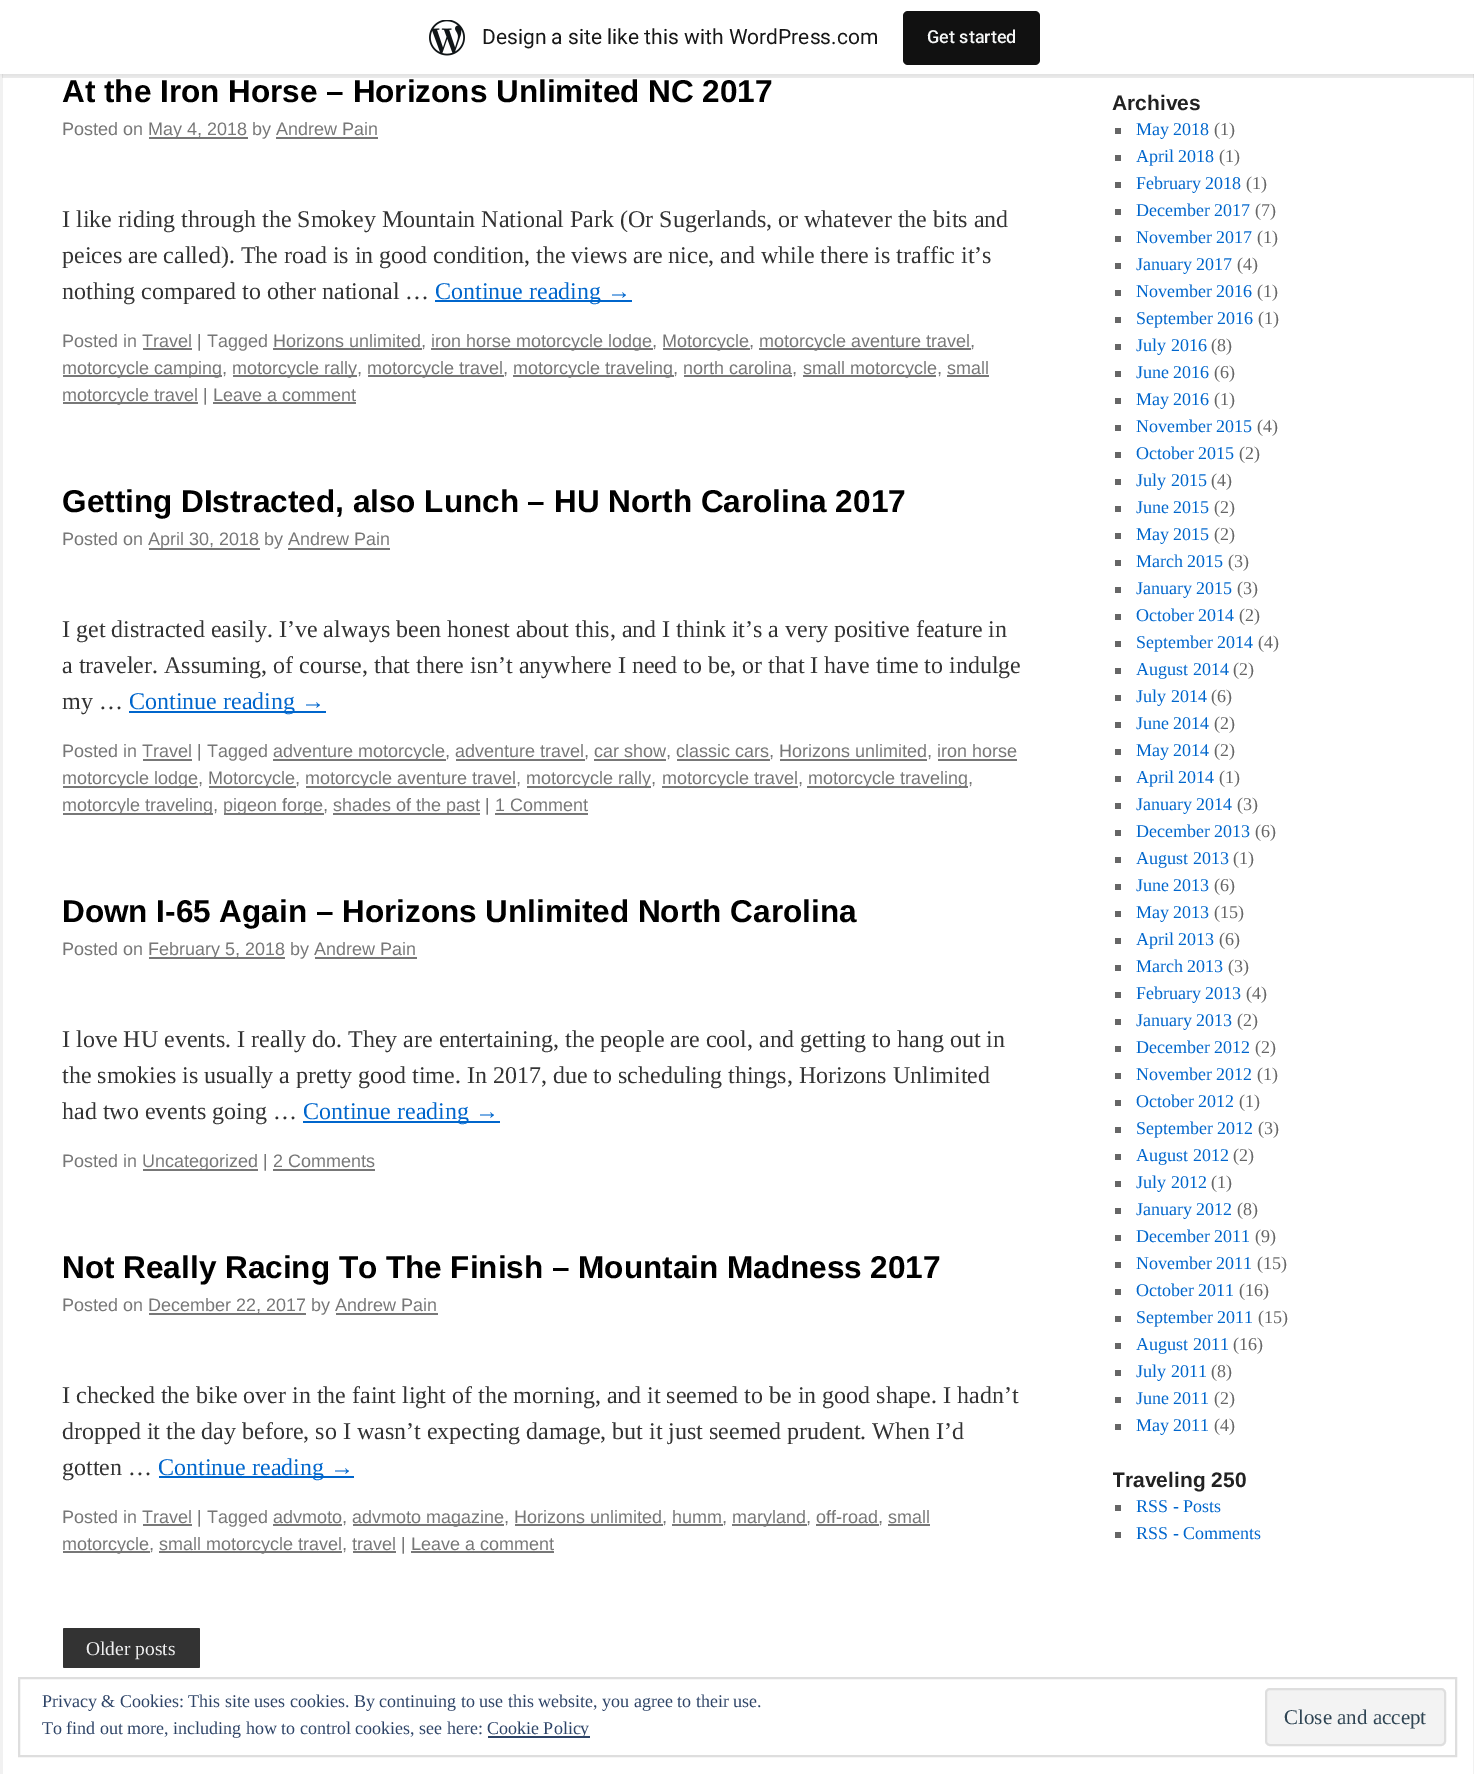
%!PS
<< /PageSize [1474 1774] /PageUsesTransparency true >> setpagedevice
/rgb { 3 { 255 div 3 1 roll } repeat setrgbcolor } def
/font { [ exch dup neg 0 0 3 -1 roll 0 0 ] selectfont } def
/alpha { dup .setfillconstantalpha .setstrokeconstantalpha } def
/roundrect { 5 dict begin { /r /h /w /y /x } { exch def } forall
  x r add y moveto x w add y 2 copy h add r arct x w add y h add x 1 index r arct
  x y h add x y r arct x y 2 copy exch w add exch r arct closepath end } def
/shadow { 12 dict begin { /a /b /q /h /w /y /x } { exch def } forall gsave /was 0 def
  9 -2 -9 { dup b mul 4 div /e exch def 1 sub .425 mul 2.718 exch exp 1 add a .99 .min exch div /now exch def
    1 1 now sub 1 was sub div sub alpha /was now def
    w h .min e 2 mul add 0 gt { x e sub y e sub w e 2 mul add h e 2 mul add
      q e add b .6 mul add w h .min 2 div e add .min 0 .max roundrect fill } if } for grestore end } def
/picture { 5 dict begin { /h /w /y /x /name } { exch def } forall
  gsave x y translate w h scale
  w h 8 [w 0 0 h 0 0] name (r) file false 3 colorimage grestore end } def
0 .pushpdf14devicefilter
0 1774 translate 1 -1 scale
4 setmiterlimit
241 241 241 rgb
0 0 1474 1774 rectfill
255 255 255 rgb
3 74 1470 1700 rectfill
0 0 0 rgb
0 2 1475 73 0 1.5 0.05 shadow
0.08 alpha
2 74 moveto 2 78 lineto 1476 78 lineto 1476 5 lineto 1474 5 lineto 1474 74 lineto closepath fill
1 alpha
255 255 255 rgb
0 0 1474 74 rectfill
(img/1.rgb) 429 20 36 36 picture
17 17 17 rgb
903 11 137 54 5 roundrect fill
[
  [149 137 99 2 119 119 119]
  [276 137 102 2 119 119 119]
  [435 300 197 2 0 102 204]
  [143 348 49 2 119 119 119]
  [273 348 149 2 119 119 119]
  [431 348 222 2 119 119 119]
  [663 348 87 2 119 119 119]
  [759 348 212 2 119 119 119]
  [63 375 159 2 119 119 119]
  [233 375 124 2 119 119 119]
  [368 375 136 2 119 119 119]
  [513 375 161 2 119 119 119]
  [684 375 108 2 119 119 119]
  [803 375 133 2 119 119 119]
  [947 375 42 2 119 119 119]
  [63 402 135 2 119 119 119]
  [213 402 143 2 119 119 119]
  [149 548 111 2 119 119 119]
  [288 548 102 2 119 119 119]
  [129 711 197 2 0 102 204]
  [143 759 49 2 119 119 119]
  [273 759 173 2 119 119 119]
  [456 759 129 2 119 119 119]
  [594 759 72 2 119 119 119]
  [677 759 93 2 119 119 119]
  [780 759 147 2 119 119 119]
  [938 759 79 2 119 119 119]
  [63 786 135 2 119 119 119]
  [209 786 87 2 119 119 119]
  [306 786 210 2 119 119 119]
  [527 786 124 2 119 119 119]
  [662 786 136 2 119 119 119]
  [807 786 161 2 119 119 119]
  [63 813 150 2 119 119 119]
  [224 813 100 2 119 119 119]
  [333 813 147 2 119 119 119]
  [495 813 93 2 119 119 119]
  [149 957 136 2 119 119 119]
  [315 957 102 2 119 119 119]
  [303 1121 197 2 0 102 204]
  [143 1169 115 2 119 119 119]
  [273 1169 102 2 119 119 119]
  [149 1313 157 2 119 119 119]
  [336 1313 102 2 119 119 119]
  [159 1476 195 2 0 102 204]
  [143 1524 49 2 119 119 119]
  [273 1524 69 2 119 119 119]
  [353 1524 151 2 119 119 119]
  [515 1524 148 2 119 119 119]
  [672 1524 51 2 119 119 119]
  [732 1524 75 2 119 119 119]
  [816 1524 63 2 119 119 119]
  [888 1524 42 2 119 119 119]
  [63 1551 87 2 119 119 119]
  [159 1551 183 2 119 119 119]
  [353 1551 43 2 119 119 119]
  [411 1551 143 2 119 119 119]
] { aload pop rgb rectfill } forall
51 51 51 rgb
63 1628 137 40 1.5 roundrect fill
[
  [1115 128 6 6 102 102 102]
  [1115 155 6 6 102 102 102]
  [1115 182 6 6 102 102 102]
  [1115 209 6 6 102 102 102]
  [1115 236 6 6 102 102 102]
  [1115 263 6 6 102 102 102]
  [1115 290 6 6 102 102 102]
  [1115 317 6 6 102 102 102]
  [1115 344 6 6 102 102 102]
  [1115 371 6 6 102 102 102]
  [1115 398 6 6 102 102 102]
  [1115 425 6 6 102 102 102]
  [1115 452 6 6 102 102 102]
  [1115 479 6 6 102 102 102]
  [1115 506 6 6 102 102 102]
  [1115 533 6 6 102 102 102]
  [1115 560 6 6 102 102 102]
  [1115 587 6 6 102 102 102]
  [1115 614 6 6 102 102 102]
  [1115 641 6 6 102 102 102]
  [1115 668 6 6 102 102 102]
  [1115 695 6 6 102 102 102]
  [1115 722 6 6 102 102 102]
  [1115 749 6 6 102 102 102]
  [1115 776 6 6 102 102 102]
  [1115 803 6 6 102 102 102]
  [1115 830 6 6 102 102 102]
  [1115 857 6 6 102 102 102]
  [1115 884 6 6 102 102 102]
  [1115 911 6 6 102 102 102]
  [1115 938 6 6 102 102 102]
  [1115 965 6 6 102 102 102]
  [1115 992 6 6 102 102 102]
  [1115 1019 6 6 102 102 102]
  [1115 1046 6 6 102 102 102]
  [1115 1073 6 6 102 102 102]
  [1115 1100 6 6 102 102 102]
  [1115 1127 6 6 102 102 102]
  [1115 1154 6 6 102 102 102]
  [1115 1181 6 6 102 102 102]
  [1115 1208 6 6 102 102 102]
  [1115 1235 6 6 102 102 102]
  [1115 1262 6 6 102 102 102]
  [1115 1289 6 6 102 102 102]
  [1115 1316 6 6 102 102 102]
  [1115 1343 6 6 102 102 102]
  [1115 1370 6 6 102 102 102]
  [1115 1397 6 6 102 102 102]
  [1115 1424 6 6 102 102 102]
  [1115 1505 6 6 102 102 102]
  [1115 1532 6 6 102 102 102]
] { aload pop rgb rectfill } forall
222 222 222 rgb
2 setlinewidth
19 1678 1437 78 rectstroke
46 68 103 rgb
488 1736 102 2 rectfill
243 243 243 rgb
1266 1689 179 56 4 roundrect gsave fill grestore
222 222 222 rgb
stroke
/Roboto-Regular 21 font
23 23 23 rgb
482 44 moveto (Design a site like this with WordPress.com) show
/Roboto-Medium 18 font
246 247 247 rgb
927 43 moveto (Get started) show
/LiberationSans-Bold 31.5 font
0 0 0 rgb
62 102 moveto (At the Iron Horse – Horizons Unlimited NC 2017) show
/LiberationSans-Regular 18 font
119 119 119 rgb
62 135 moveto (Posted on) show
148 135 moveto (May 4, 2018 by Andrew Pain) show
/LiberationSerif-Regular 24 font
51 51 51 rgb
[
  [(I like riding through the Smokey Mountain National Park \(Or Sugerlands, or whatever the bits and) 62 227]
  [(peices are called\). The road is in good condition, the views are nice, and while there is traffic it’s) 62 263]
  [(nothing compared to other national …) 62 299]
] { aload pop moveto show } forall
0 102 204 rgb
435 299 moveto (Continue reading →) show
/LiberationSans-Regular 18 font
119 119 119 rgb
[
  [(Posted in Travel | Tagged Horizons unlimited,) 62 347]
  [(iron horse motorcycle lodge,) 431 347]
  [(Motorcycle,) 662 347]
  [(motorcycle aventure travel,) 759 347]
  [(motorcycle camping,) 62 374]
  [(motorcycle rally,) 232 374]
  [(motorcycle travel,) 367 374]
  [(motorcycle traveling, north carolina,) 513 374]
  [(small motorcycle, small) 803 374]
  [(motorcycle travel | Leave a comment) 62 401]
] { aload pop moveto show } forall
/LiberationSans-Bold 31.5 font
0 0 0 rgb
62 512 moveto (Getting DIstracted, also Lunch – HU North Carolina 2017) show
/LiberationSans-Regular 18 font
119 119 119 rgb
62 545 moveto (Posted on) show
148 545 moveto (April 30, 2018 by Andrew Pain) show
/LiberationSerif-Regular 24 font
51 51 51 rgb
[
  [(I get distracted easily. I’ve always been honest about this, and I think it’s a very positive feature in) 62 637]
  [(a traveler. Assuming, of course, that there isn’t anywhere I need to be, or that I have time to indulge) 62 673]
  [(my …) 62 709]
] { aload pop moveto show } forall
0 102 204 rgb
129 709 moveto (Continue reading →) show
/LiberationSans-Regular 18 font
119 119 119 rgb
[
  [(Posted in Travel | Tagged) 62 757]
  [(adventure motorcycle, adventure travel, car show, classic cars, Horizons unlimited, iron horse) 273 757]
  [(motorcycle lodge,) 62 784]
  [(Motorcycle,) 208 784]
  [(motorcycle aventure travel,) 305 784]
  [(motorcycle rally,) 526 784]
  [(motorcycle travel,) 662 784]
  [(motorcycle traveling,) 808 784]
  [(motorcyle traveling,) 62 811]
  [(pigeon forge,) 223 811]
  [(shades of the past | 1 Comment) 333 811]
] { aload pop moveto show } forall
/LiberationSans-Bold 31.5 font
0 0 0 rgb
62 922 moveto (Down I-65 Again – Horizons Unlimited North Carolina) show
/LiberationSans-Regular 18 font
119 119 119 rgb
62 955 moveto (Posted on) show
148 955 moveto (February 5, 2018 by Andrew Pain) show
/LiberationSerif-Regular 24 font
51 51 51 rgb
[
  [(I love HU events. I really do. They are entertaining, the people are cool, and getting to hang out in) 62 1047]
  [(the smokies is usually a pretty good time. In 2017, due to scheduling things, Horizons Unlimited) 62 1083]
  [(had two events going …) 62 1119]
] { aload pop moveto show } forall
0 102 204 rgb
303 1119 moveto (Continue reading →) show
/LiberationSans-Regular 18 font
119 119 119 rgb
62 1167 moveto (Posted in) show
142 1167 moveto (Uncategorized | 2 Comments) show
/LiberationSans-Bold 31.5 font
0 0 0 rgb
62 1278 moveto (Not Really Racing To The Finish – Mountain Madness 2017) show
/LiberationSans-Regular 18 font
119 119 119 rgb
62 1311 moveto (Posted on) show
148 1311 moveto (December 22, 2017 by Andrew Pain) show
/LiberationSerif-Regular 24 font
51 51 51 rgb
[
  [(I checked the bike over in the faint light of the morning, and it seemed to be in good shape. I hadn’t) 62 1403]
  [(dropped it the day before, so I wasn’t expecting damage, but it just seemed prudent. When I’d) 62 1439]
  [(gotten …) 62 1475]
] { aload pop moveto show } forall
0 102 204 rgb
158 1475 moveto (Continue reading →) show
/LiberationSans-Regular 18 font
119 119 119 rgb
[
  [(Posted in Travel | Tagged advmoto,) 62 1523]
  [(advmoto magazine, Horizons unlimited, humm,) 352 1523]
  [(maryland, off-road, small) 732 1523]
  [(motorcycle,) 62 1550]
  [(small motorcycle travel, travel | Leave a comment) 159 1550]
] { aload pop moveto show } forall
/LiberationSerif-Regular 19.5 font
240 240 241 rgb
86 1655 moveto (Older posts) show
/LiberationSans-Bold 21 font
34 34 34 rgb
1112 110 moveto (Archives) show
/LiberationSerif-Regular 18 font
0 102 204 rgb
1136 135 moveto (May 2018) show
102 102 102 rgb
1214 135 moveto (\(1\)) show
0 102 204 rgb
1136 162 moveto (April 2018) show
102 102 102 rgb
1219 162 moveto (\(1\)) show
0 102 204 rgb
1136 189 moveto (February 2018) show
102 102 102 rgb
1246 189 moveto (\(1\)) show
0 102 204 rgb
1136 216 moveto (December 2017) show
102 102 102 rgb
1255 216 moveto (\(7\)) show
0 102 204 rgb
1136 243 moveto (November 2017) show
102 102 102 rgb
1257 243 moveto (\(1\)) show
0 102 204 rgb
1136 270 moveto (January 2017) show
102 102 102 rgb
1237 270 moveto (\(4\)) show
0 102 204 rgb
1136 297 moveto (November 2016) show
102 102 102 rgb
1257 297 moveto (\(1\)) show
0 102 204 rgb
1136 324 moveto (September 2016) show
102 102 102 rgb
1258 324 moveto (\(1\)) show
0 102 204 rgb
1136 351 moveto (July 2016) show
102 102 102 rgb
1211 351 moveto (\(8\)) show
0 102 204 rgb
1136 378 moveto (June 2016) show
102 102 102 rgb
1214 378 moveto (\(6\)) show
0 102 204 rgb
1136 405 moveto (May 2016) show
102 102 102 rgb
1214 405 moveto (\(1\)) show
0 102 204 rgb
1136 432 moveto (November 2015) show
102 102 102 rgb
1257 432 moveto (\(4\)) show
0 102 204 rgb
1136 459 moveto (October 2015) show
102 102 102 rgb
1239 459 moveto (\(2\)) show
0 102 204 rgb
1136 486 moveto (July 2015) show
102 102 102 rgb
1211 486 moveto (\(4\)) show
0 102 204 rgb
1136 513 moveto (June 2015) show
102 102 102 rgb
1214 513 moveto (\(2\)) show
0 102 204 rgb
1136 540 moveto (May 2015) show
102 102 102 rgb
1214 540 moveto (\(2\)) show
0 102 204 rgb
1136 567 moveto (March 2015) show
102 102 102 rgb
1228 567 moveto (\(3\)) show
0 102 204 rgb
1136 594 moveto (January 2015) show
102 102 102 rgb
1237 594 moveto (\(3\)) show
0 102 204 rgb
1136 621 moveto (October 2014) show
102 102 102 rgb
1239 621 moveto (\(2\)) show
0 102 204 rgb
1136 648 moveto (September 2014) show
102 102 102 rgb
1258 648 moveto (\(4\)) show
0 102 204 rgb
1136 675 moveto (August 2014) show
102 102 102 rgb
1233 675 moveto (\(2\)) show
0 102 204 rgb
1136 702 moveto (July 2014) show
102 102 102 rgb
1211 702 moveto (\(6\)) show
0 102 204 rgb
1136 729 moveto (June 2014) show
102 102 102 rgb
1214 729 moveto (\(2\)) show
0 102 204 rgb
1136 756 moveto (May 2014) show
102 102 102 rgb
1214 756 moveto (\(2\)) show
0 102 204 rgb
1136 783 moveto (April 2014) show
102 102 102 rgb
1219 783 moveto (\(1\)) show
0 102 204 rgb
1136 810 moveto (January 2014) show
102 102 102 rgb
1237 810 moveto (\(3\)) show
0 102 204 rgb
1136 837 moveto (December 2013) show
102 102 102 rgb
1255 837 moveto (\(6\)) show
0 102 204 rgb
1136 864 moveto (August 2013) show
102 102 102 rgb
1233 864 moveto (\(1\)) show
0 102 204 rgb
1136 891 moveto (June 2013) show
102 102 102 rgb
1214 891 moveto (\(6\)) show
0 102 204 rgb
1136 918 moveto (May 2013) show
102 102 102 rgb
1214 918 moveto (\(15\)) show
0 102 204 rgb
1136 945 moveto (April 2013) show
102 102 102 rgb
1219 945 moveto (\(6\)) show
0 102 204 rgb
1136 972 moveto (March 2013) show
102 102 102 rgb
1228 972 moveto (\(3\)) show
0 102 204 rgb
1136 999 moveto (February 2013) show
102 102 102 rgb
1246 999 moveto (\(4\)) show
0 102 204 rgb
1136 1026 moveto (January 2013) show
102 102 102 rgb
1237 1026 moveto (\(2\)) show
0 102 204 rgb
1136 1053 moveto (December 2012) show
102 102 102 rgb
1255 1053 moveto (\(2\)) show
0 102 204 rgb
1136 1080 moveto (November 2012) show
102 102 102 rgb
1257 1080 moveto (\(1\)) show
0 102 204 rgb
1136 1107 moveto (October 2012) show
102 102 102 rgb
1239 1107 moveto (\(1\)) show
0 102 204 rgb
1136 1134 moveto (September 2012) show
102 102 102 rgb
1258 1134 moveto (\(3\)) show
0 102 204 rgb
1136 1161 moveto (August 2012) show
102 102 102 rgb
1233 1161 moveto (\(2\)) show
0 102 204 rgb
1136 1188 moveto (July 2012) show
102 102 102 rgb
1211 1188 moveto (\(1\)) show
0 102 204 rgb
1136 1215 moveto (January 2012) show
102 102 102 rgb
1237 1215 moveto (\(8\)) show
0 102 204 rgb
1136 1242 moveto (December 2011) show
102 102 102 rgb
1255 1242 moveto (\(9\)) show
0 102 204 rgb
1136 1269 moveto (November 2011) show
102 102 102 rgb
1257 1269 moveto (\(15\)) show
0 102 204 rgb
1136 1296 moveto (October 2011) show
102 102 102 rgb
1239 1296 moveto (\(16\)) show
0 102 204 rgb
1136 1323 moveto (September 2011) show
102 102 102 rgb
1258 1323 moveto (\(15\)) show
0 102 204 rgb
1136 1350 moveto (August 2011) show
102 102 102 rgb
1233 1350 moveto (\(16\)) show
0 102 204 rgb
1136 1377 moveto (July 2011) show
102 102 102 rgb
1211 1377 moveto (\(8\)) show
0 102 204 rgb
1136 1404 moveto (June 2011) show
102 102 102 rgb
1214 1404 moveto (\(2\)) show
0 102 204 rgb
1136 1431 moveto (May 2011) show
102 102 102 rgb
1214 1431 moveto (\(4\)) show
gsave
1113 8 330 1566 rectclip
/LiberationSans-Bold 21 font
34 34 34 rgb
1112 1487 moveto (Traveling 250) show
grestore
0 102 204 rgb
1136 1512 moveto (RSS - Posts) show
1136 1539 moveto (RSS - Comments) show
46 68 103 rgb
[
  [(Privacy & Cookies: This site uses cookies. By continuing to use this website, you agree to their use.) 42 1707]
  [(To find out more, including how to control cookies, see here:) 42 1734]
  [(Cookie Policy) 487 1734]
] { aload pop moveto show } forall
/LiberationSerif-Regular 21 font
46 68 83 rgb
1284 1724 moveto (Close and accept) show
.poppdf14devicefilter showpage
